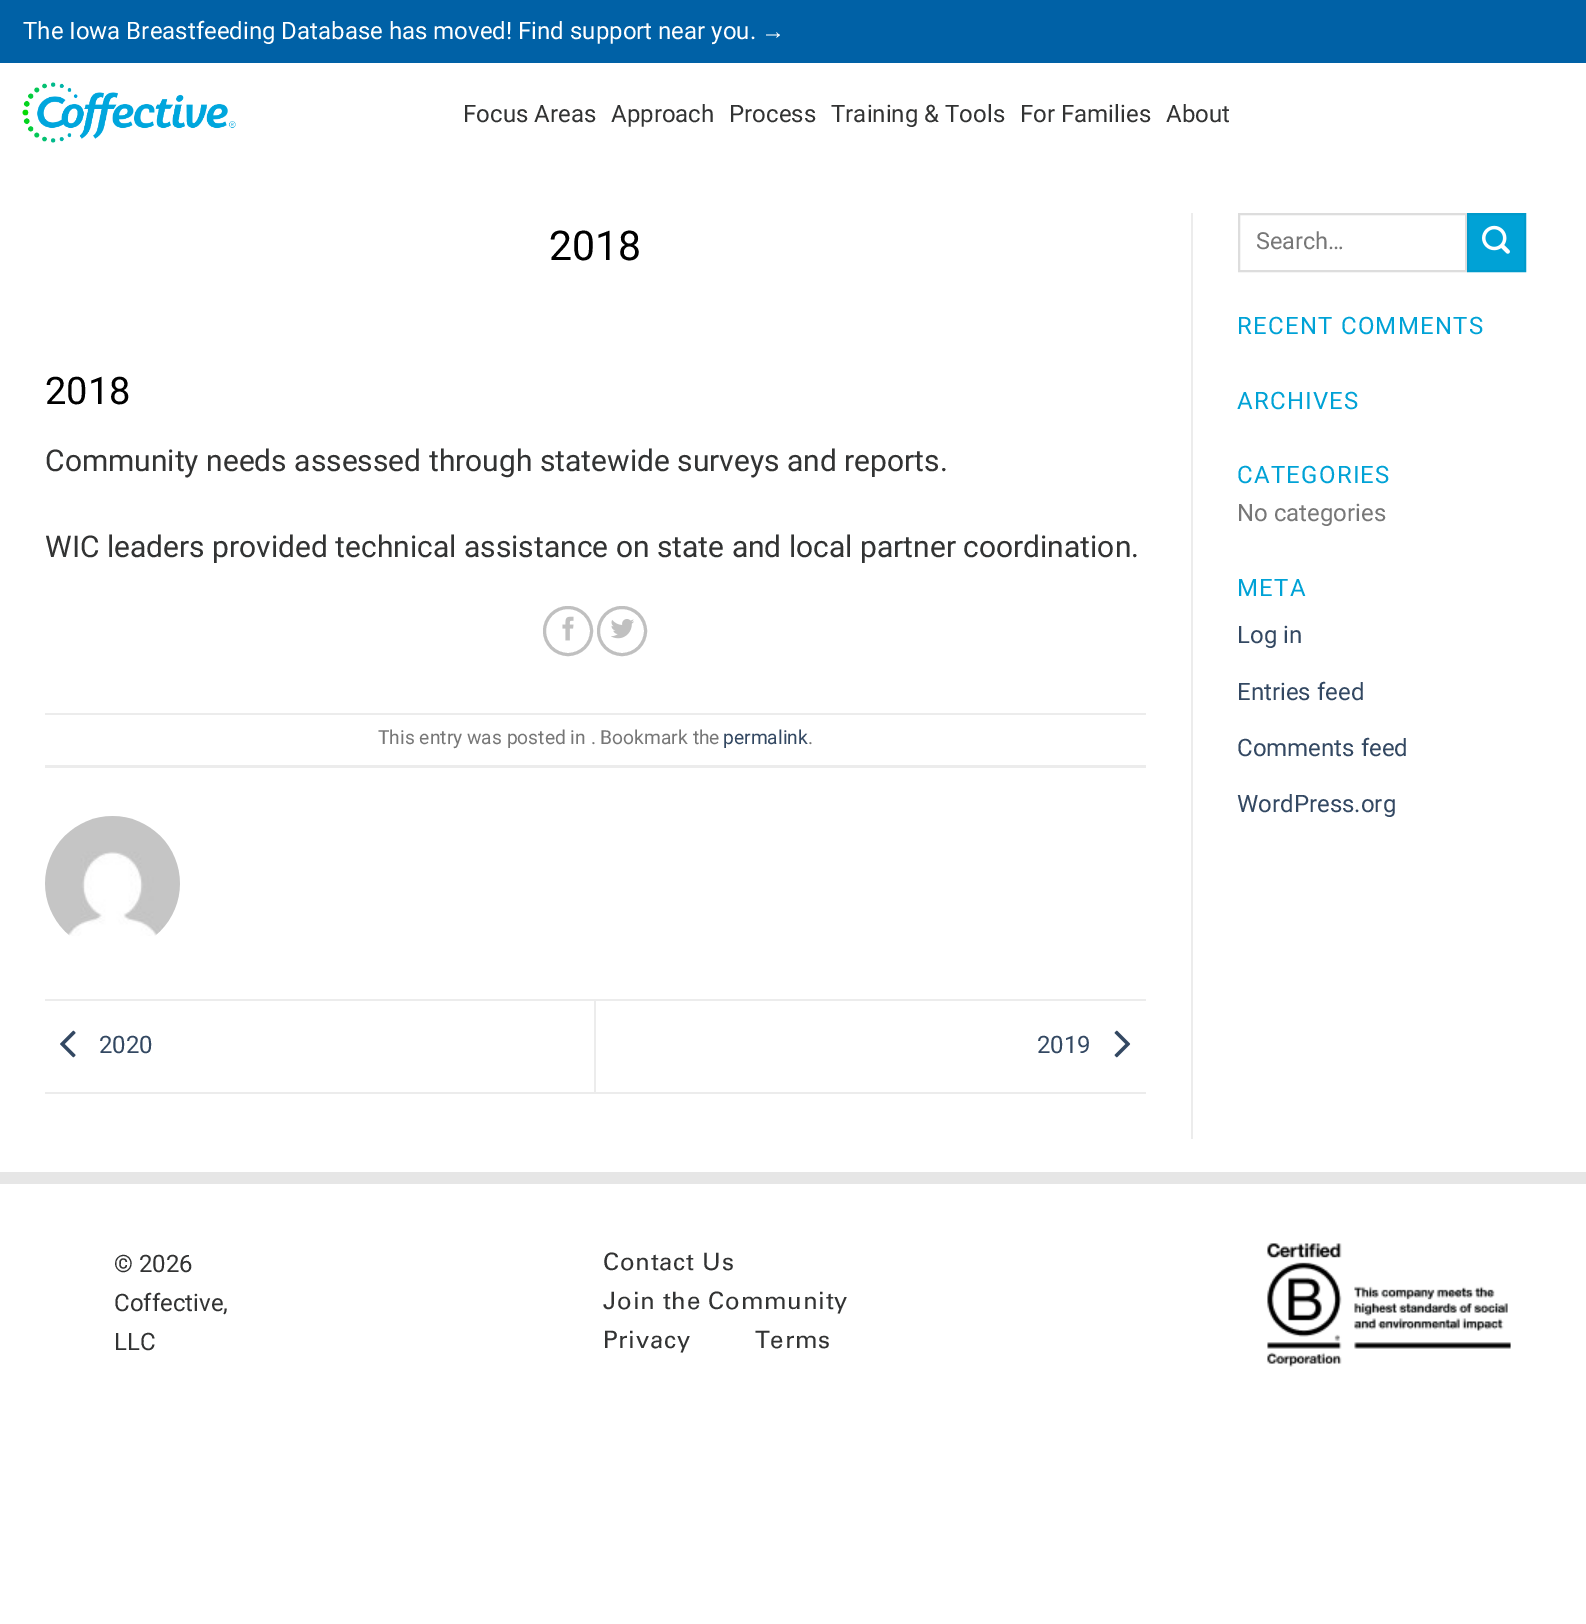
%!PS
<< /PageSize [1586 1624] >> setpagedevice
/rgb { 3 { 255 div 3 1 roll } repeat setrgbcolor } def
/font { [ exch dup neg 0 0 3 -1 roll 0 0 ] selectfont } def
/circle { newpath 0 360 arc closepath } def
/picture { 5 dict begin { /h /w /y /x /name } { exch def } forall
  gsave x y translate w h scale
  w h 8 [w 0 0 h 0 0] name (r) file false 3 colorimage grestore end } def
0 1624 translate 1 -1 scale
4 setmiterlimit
255 255 255 rgb
0 0 1586 1624 rectfill
0 97 166 rgb
0 0 1586 63 rectfill
(img/1.rgb) 22 82 214 61 picture
192 192 192 rgb
3 setlinewidth
568 631 23.5 circle stroke
(img/2.rgb) 562 616 12 25 picture
622 631 23.5 circle stroke
(img/3.rgb) 611 619 23 20 picture
236 236 236 rgb
45 713 1101 2 rectfill
45 765 1101 3 rectfill
(img/4.rgb) 45 816 135 120 picture
45 999 1101 2 rectfill
45 1092 1101 2 rectfill
(img/5.rgb) 60 1030 16 28 picture
594 1001 2 91 rectfill
(img/6.rgb) 1114 1030 17 28 picture
1191 213 2 926 rectfill
221 221 221 rgb
2 setlinewidth
1239 214 227 57 rectstroke
0 162 214 rgb
1468 214 moveto 1525 214 lineto 1525 271 lineto 1468 271 lineto closepath gsave fill grestore
0 154 203 rgb
stroke
(img/7.rgb) 1482 225 28 29 picture
230 230 230 rgb
0 1172 1586 12 rectfill
(img/8.rgb) 1267 1243 244 124 picture
/Roboto-Regular 24 font
255 255 255 rgb
23 39 moveto (The Iowa Breastfeeding Database has moved! Find support near you.) show
/LiberationSans-Regular 24 font
761 39 moveto (→) show
/Roboto-Regular 24 font
50 51 51 rgb
[
  [(Focus Areas) 463 122]
  [(Approach) 611 122]
  [(Process) 729 122]
  [(Training & Tools) 831 122]
  [(For Families) 1020 122]
  [(About) 1166 122]
] { aload pop moveto show } forall
/Roboto-Regular 41 font
0 0 0 rgb
549 260 moveto (2018) show
/Roboto-Regular 38 font
45 404 moveto (2018) show
/Roboto-Regular 30 font
50 51 51 rgb
45 471 moveto (Community needs assessed through statewide surveys and reports.) show
45 557 moveto (WIC leaders provided technical assistance on state and local partner coordination.) show
/Roboto-Regular 19.25 font
119 119 119 rgb
378 744 moveto (This entry was posted in . Bookmark the) show
51 72 98 rgb
723 744 moveto (permalink) show
119 119 119 rgb
808 744 moveto (.) show
/Roboto-Regular 24 font
51 72 98 rgb
99 1053 moveto (2020) show
1037 1053 moveto (2019) show
/Roboto-Regular 23.5 font
119 119 119 rgb
1256 249 moveto (Search…) show
/Roboto-Regular 24 font
0 162 214 rgb
1237 334 moveto 1.25 0 (RECENT COMMENTS) ashow
1237 409 moveto 1.25 0 (ARCHIVES) ashow
1237 483 moveto 1.25 0 (CATEGORIES) ashow
119 119 119 rgb
1237 521 moveto (No categories) show
0 162 214 rgb
1237 596 moveto 1.25 0 (META) ashow
51 72 98 rgb
[
  [(Log in) 1237 643]
  [(Entries feed) 1237 700]
  [(Comments feed) 1237 756]
  [(WordPress.org) 1237 812]
] { aload pop moveto show } forall
50 51 51 rgb
[
  [(© 2026) 114 1272]
  [(Coffective,) 114 1311]
  [(LLC) 114 1350]
] { aload pop moveto show } forall
/Univers-Regular 24 font
603 1270 moveto 0.75 0 (Contact Us) ashow
603 1309 moveto 0.75 0 (Join the Community) ashow
603 1348 moveto 0.75 0 (Privacy) ashow
755 1348 moveto 0.75 0 (Terms) ashow
showpage
